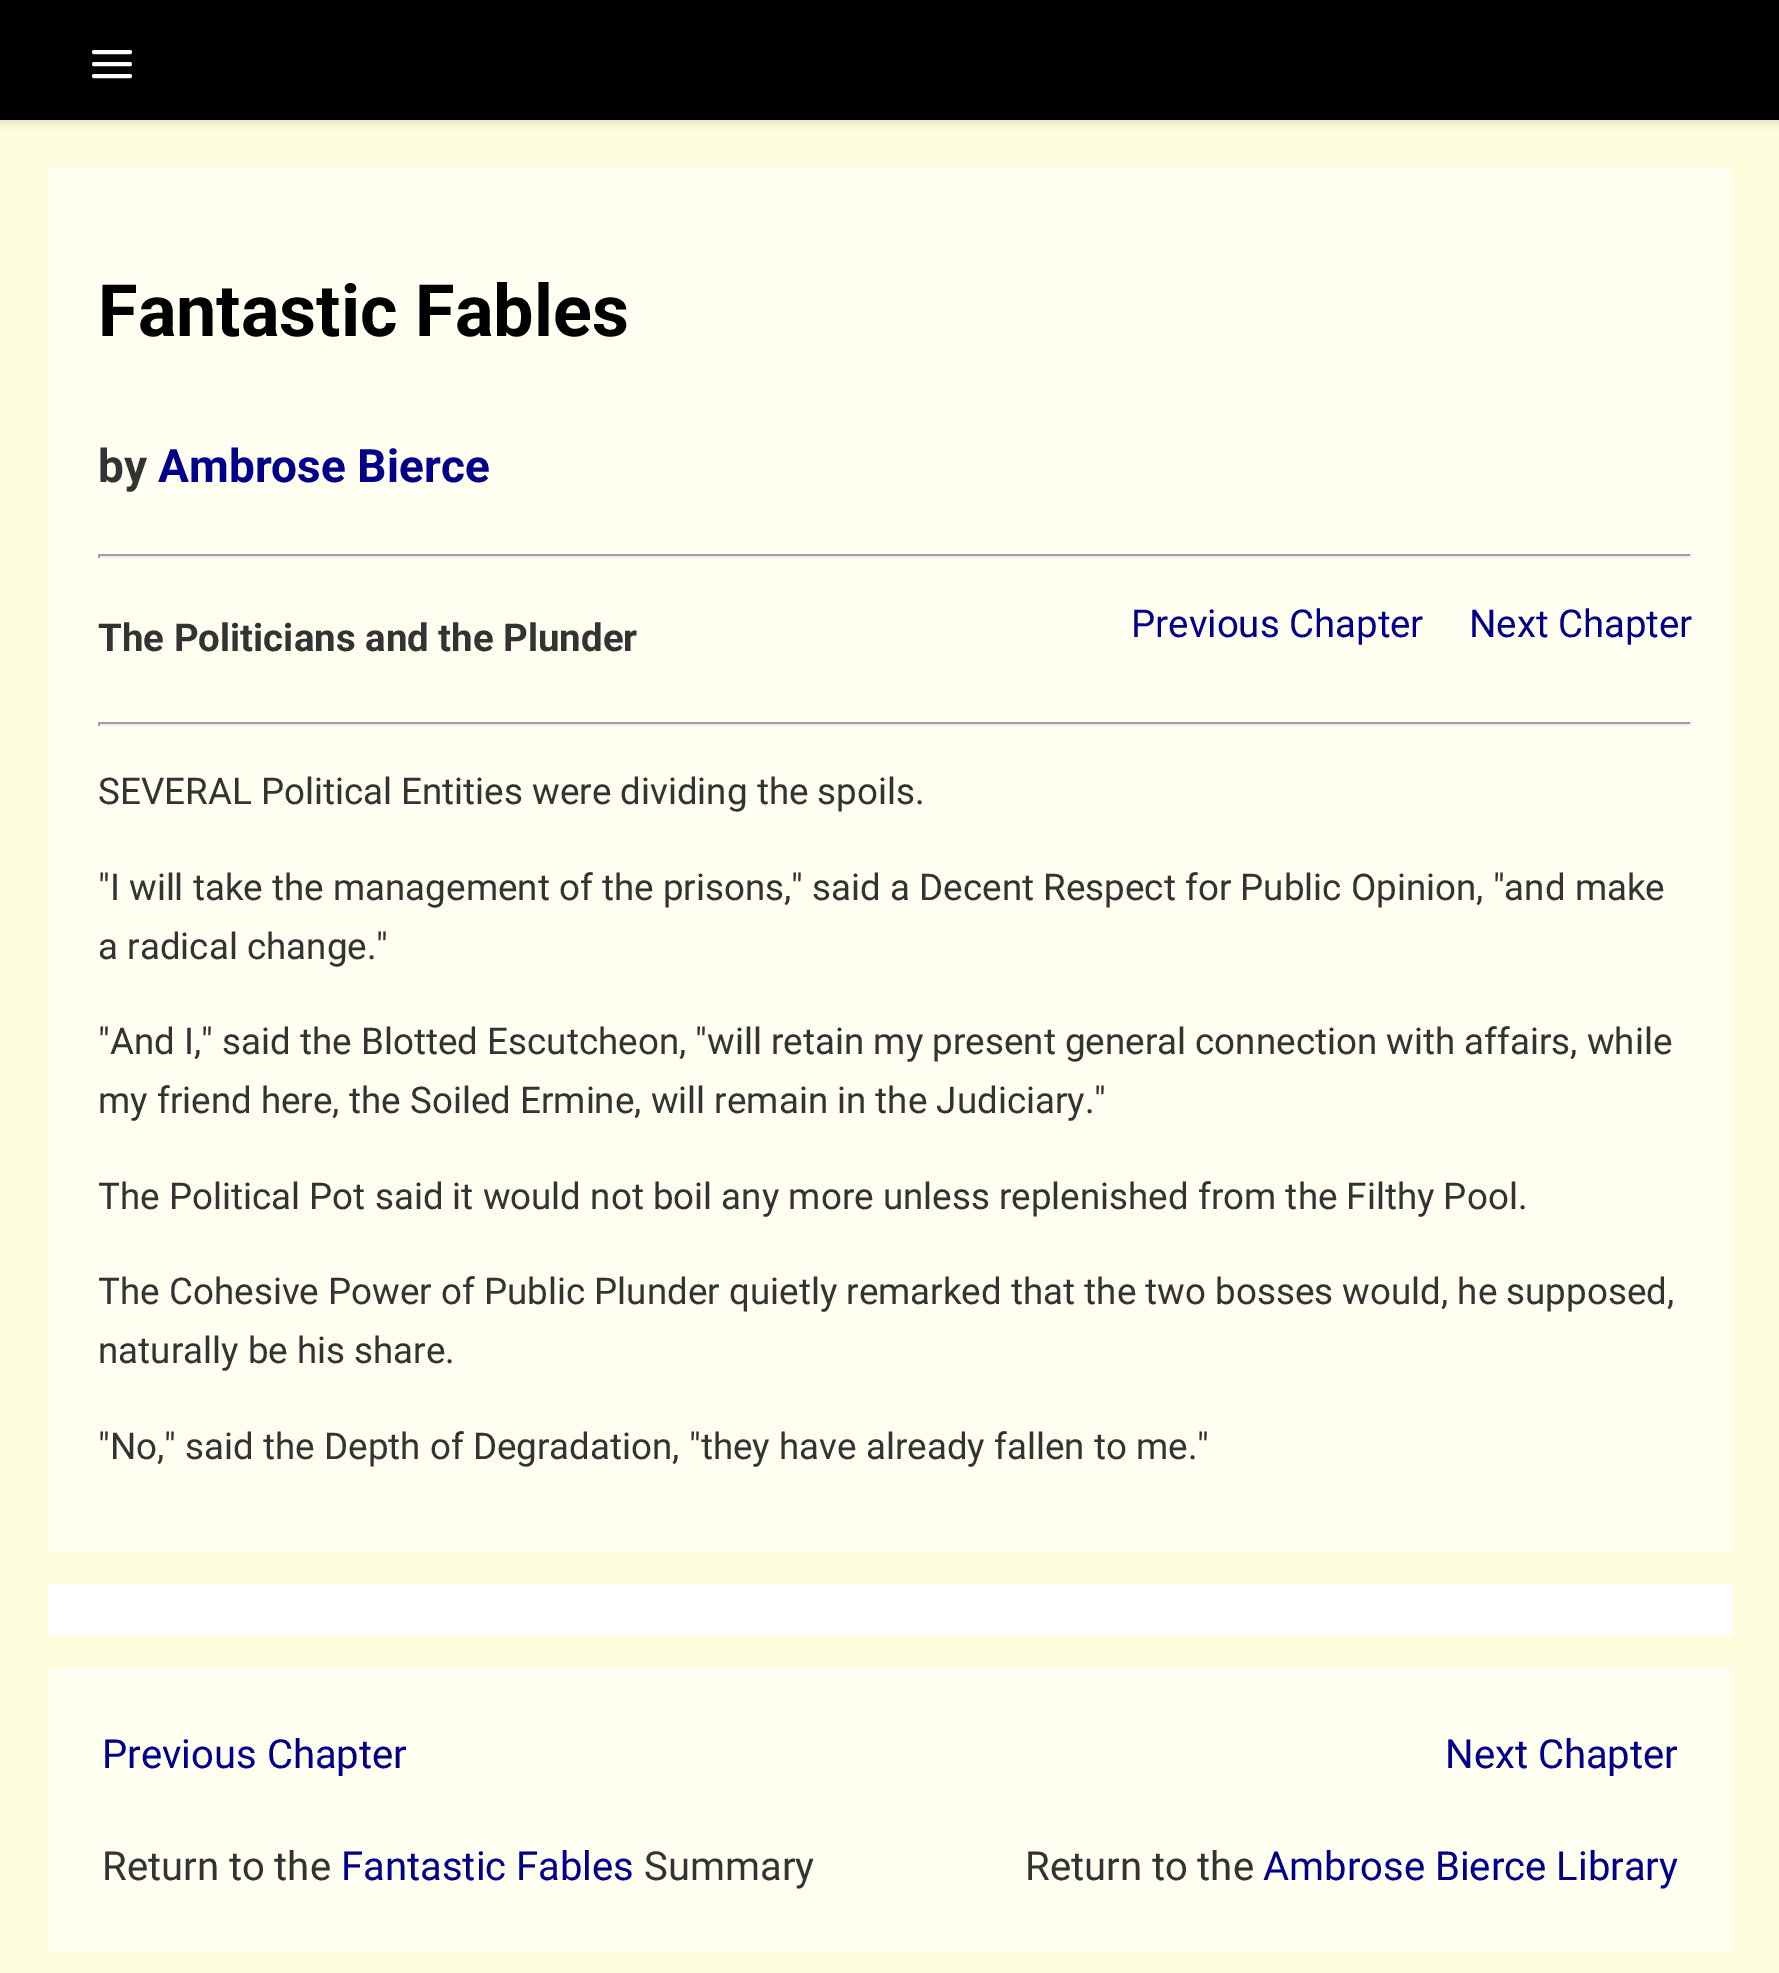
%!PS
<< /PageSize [1779 1973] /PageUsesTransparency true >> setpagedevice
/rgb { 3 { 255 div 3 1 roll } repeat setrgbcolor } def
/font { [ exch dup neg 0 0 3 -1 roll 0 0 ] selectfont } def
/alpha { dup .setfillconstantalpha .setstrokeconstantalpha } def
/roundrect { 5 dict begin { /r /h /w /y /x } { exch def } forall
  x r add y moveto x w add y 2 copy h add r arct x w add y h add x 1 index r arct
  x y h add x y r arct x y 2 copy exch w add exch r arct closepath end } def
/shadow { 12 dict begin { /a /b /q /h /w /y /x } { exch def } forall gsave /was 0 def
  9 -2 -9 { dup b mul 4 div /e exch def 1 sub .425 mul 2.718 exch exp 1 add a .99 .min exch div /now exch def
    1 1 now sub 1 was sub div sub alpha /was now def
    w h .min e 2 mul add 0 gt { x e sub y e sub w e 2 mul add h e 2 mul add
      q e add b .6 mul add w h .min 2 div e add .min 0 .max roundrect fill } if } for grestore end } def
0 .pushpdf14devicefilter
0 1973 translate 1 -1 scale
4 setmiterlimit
253 252 220 rgb
0 0 1779 1973 rectfill
0 0 0 rgb
0 4 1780 120 0 4 0.1 shadow
0 0 1779 120 rectfill
255 255 255 rgb
4 setlinewidth
1 setlinecap
1 setlinejoin
94 64 moveto 130 64 lineto 94 52 moveto 130 52 lineto 94 76 moveto 130 76 lineto stroke
[
  [48 168 1684 1384 255 254 240]
  [98 554 1594 2 159 159 159]
  [1690 554 2 4 238 238 238]
  [98 556 1594 2 238 238 238]
  [98 554 2 4 159 159 159]
  [98 722 1594 2 159 159 159]
  [1690 722 2 4 238 238 238]
  [98 724 1594 2 238 238 238]
  [98 722 2 4 159 159 159]
  [48 1584 1684 52 255 255 255]
  [48 1668 1684 284 255 254 240]
] { aload pop rgb rectfill } forall
/Roboto-Bold 72 font
0 0 0 rgb
98 336 moveto (Fantastic Fables) show
/Roboto-Bold 46 font
51 51 51 rgb
98 482 moveto (by) show
0 0 139 rgb
158 482 moveto (Ambrose Bierce) show
/Roboto-Bold 38.4 font
51 51 51 rgb
98 651 moveto (The Politicians and the Plunder) show
/Roboto-Regular 38.4 font
0 0 139 rgb
1131 637 moveto (Previous Chapter) show
1469 637 moveto (Next Chapter) show
/Roboto-Regular 36.8 font
51 51 51 rgb
[
  [(SEVERAL Political Entities were dividing the spoils.) 98 804]
  [("I will take the management of the prisons," said a Decent Respect for Public Opinion, "and make) 98 900]
  [(a radical change.") 98 959]
  [("And I," said the Blotted Escutcheon, "will retain my present general connection with affairs, while) 98 1054]
  [(my friend here, the Soiled Ermine, will remain in the Judiciary.") 98 1113]
  [(The Political Pot said it would not boil any more unless replenished from the Filthy Pool.) 98 1209]
  [(The Cohesive Power of Public Plunder quietly remarked that the two bosses would, he supposed,) 98 1304]
  [(naturally be his share.) 98 1363]
  [("No," said the Depth of Degradation, "they have already fallen to me.") 98 1459]
] { aload pop moveto show } forall
/Roboto-Regular 40 font
0 0 139 rgb
102 1768 moveto (Previous Chapter) show
1445 1768 moveto (Next Chapter) show
51 51 51 rgb
102 1880 moveto (Return to the) show
0 0 139 rgb
341 1880 moveto (Fantastic Fables) show
51 51 51 rgb
644 1880 moveto (Summary) show
1025 1880 moveto (Return to the) show
0 0 139 rgb
1263 1880 moveto (Ambrose Bierce Library) show
.poppdf14devicefilter showpage
